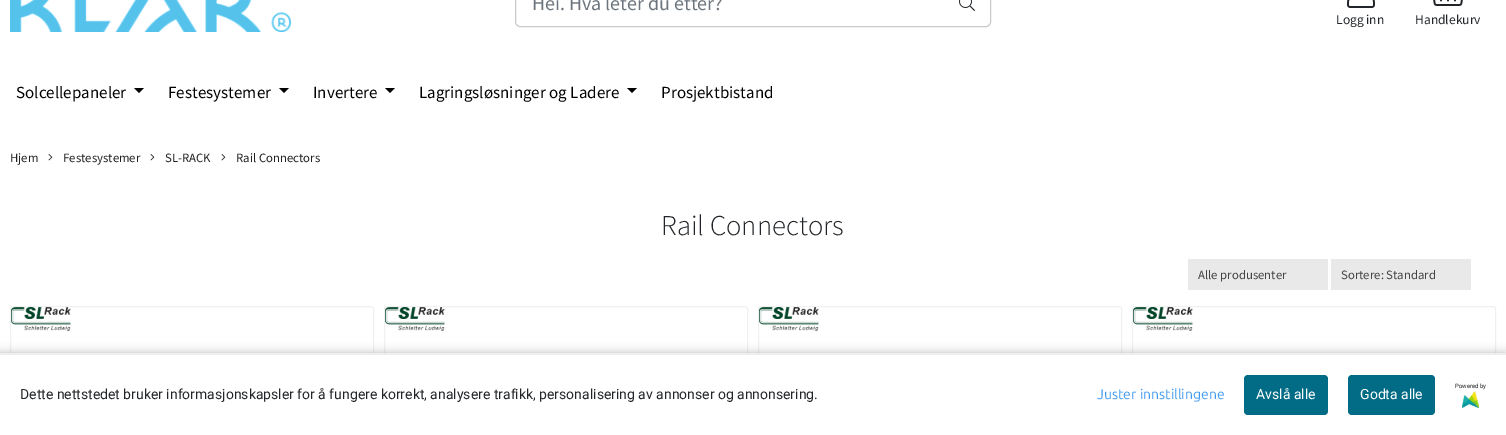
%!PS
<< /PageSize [1506 435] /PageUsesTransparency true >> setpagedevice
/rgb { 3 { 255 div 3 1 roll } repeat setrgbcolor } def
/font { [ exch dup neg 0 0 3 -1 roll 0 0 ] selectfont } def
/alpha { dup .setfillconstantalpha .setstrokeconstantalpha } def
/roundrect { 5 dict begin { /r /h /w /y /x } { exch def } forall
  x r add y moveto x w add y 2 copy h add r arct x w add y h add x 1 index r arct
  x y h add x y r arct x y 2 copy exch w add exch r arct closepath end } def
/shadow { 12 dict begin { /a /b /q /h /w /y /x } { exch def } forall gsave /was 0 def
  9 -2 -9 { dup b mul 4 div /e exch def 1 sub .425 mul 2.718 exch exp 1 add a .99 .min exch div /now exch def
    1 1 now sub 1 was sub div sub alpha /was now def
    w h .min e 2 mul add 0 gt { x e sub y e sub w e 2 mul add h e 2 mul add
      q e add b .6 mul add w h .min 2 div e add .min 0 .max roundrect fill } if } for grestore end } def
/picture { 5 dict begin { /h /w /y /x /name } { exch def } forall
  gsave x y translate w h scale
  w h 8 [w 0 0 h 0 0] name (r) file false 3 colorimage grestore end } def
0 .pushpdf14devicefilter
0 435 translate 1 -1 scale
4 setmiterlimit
255 255 255 rgb
0 0 1506 435 rectfill
(img/1.rgb) 10 0 281 32 picture
202 202 202 rgb
515.5 -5.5 475 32 4.5 roundrect stroke
(img/2.rgb) 959 0 16 11 picture
(img/3.rgb) 1347 0 28 8 picture
(img/4.rgb) 1433 0 30 6 picture
0 0 0 rgb
134 88 moveto 144 88 lineto 139 93 lineto closepath fill
279 88 moveto 289 88 lineto 284 93 lineto closepath fill
385 88 moveto 395 88 lineto 390 93 lineto closepath fill
627 88 moveto 637 88 lineto 632 93 lineto closepath fill
(img/5.rgb) 48 154 5 7 picture
(img/5.rgb) 150 154 5 7 picture
(img/5.rgb) 221 154 5 7 picture
233 233 233 rgb
1188 259 140 31 rectfill
1331 259 140 31 rectfill
240 240 240 rgb
10.5 306.5 363 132 2.5 roundrect stroke
(img/6.rgb) 11 307 60 24 picture
384.5 306.5 363 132 2.5 roundrect stroke
(img/6.rgb) 385 307 60 24 picture
758.5 306.5 363 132 2.5 roundrect stroke
(img/6.rgb) 759 307 60 24 picture
1132.5 306.5 363 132 2.5 roundrect stroke
(img/6.rgb) 1133 307 60 24 picture
0 0 0 rgb
0 353 1506 82 0 5 0.25 shadow
255 255 255 rgb
0 355 1506 80 rectfill
238 238 238 rgb
0 353 1506 2 rectfill
2 107 133 rgb
1244 375 84 40 4 roundrect fill
1348 375 87 40 4 roundrect fill
(img/7.rgb) 1462 391 17 17 picture
/SourceSansPro-Regular 20 font
108 117 125 rgb
532 10 moveto (Hei. Hva leter du etter?) show
/SourceSansPro-Regular 13.5 font
33 37 41 rgb
1336 24 moveto (Logg inn) show
1415 24 moveto (Handlekurv) show
/SourceSansPro-Regular 17 font
0 0 0 rgb
[
  [(Solcellepaneler) 16 98]
  [(Festesystemer) 168 98]
  [(Invertere) 313 98]
  [(Lagringsløsninger og Ladere) 419 98]
  [(Prosjektbistand) 661 98]
] { aload pop moveto show } forall
/SourceSansPro-Regular 12.75 font
32 33 33 rgb
[
  [(Hjem) 10 162]
  [(Festesystemer) 63 162]
  [(SL-RACK) 165 162]
  [(Rail Connectors) 236 162]
] { aload pop moveto show } forall
/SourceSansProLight-Light 28.75 font
33 37 41 rgb
661 235 moveto (Rail Connectors) show
/SourceSansPro-Regular 12.75 font
68 68 68 rgb
1198 279 moveto (Alle produsenter) show
1341 279 moveto (Sortere: Standard) show
/Roboto-Regular 14 font
33 37 41 rgb
20 399 moveto (Dette nettstedet bruker informasjonskapsler for å fungere korrekt, analysere trafikk, personalisering av annonser og annonsering.) show
/Ubuntu-Regular 14 font
64 154 239 rgb
1097 399 moveto (Juster innstillingene) show
/Roboto-Regular 14 font
255 255 255 rgb
1256 399 moveto (Avslå alle) show
1360 399 moveto (Godta alle) show
/Roboto-Regular 6 font
33 37 41 rgb
1455 388 moveto (Powered by) show
.poppdf14devicefilter showpage
